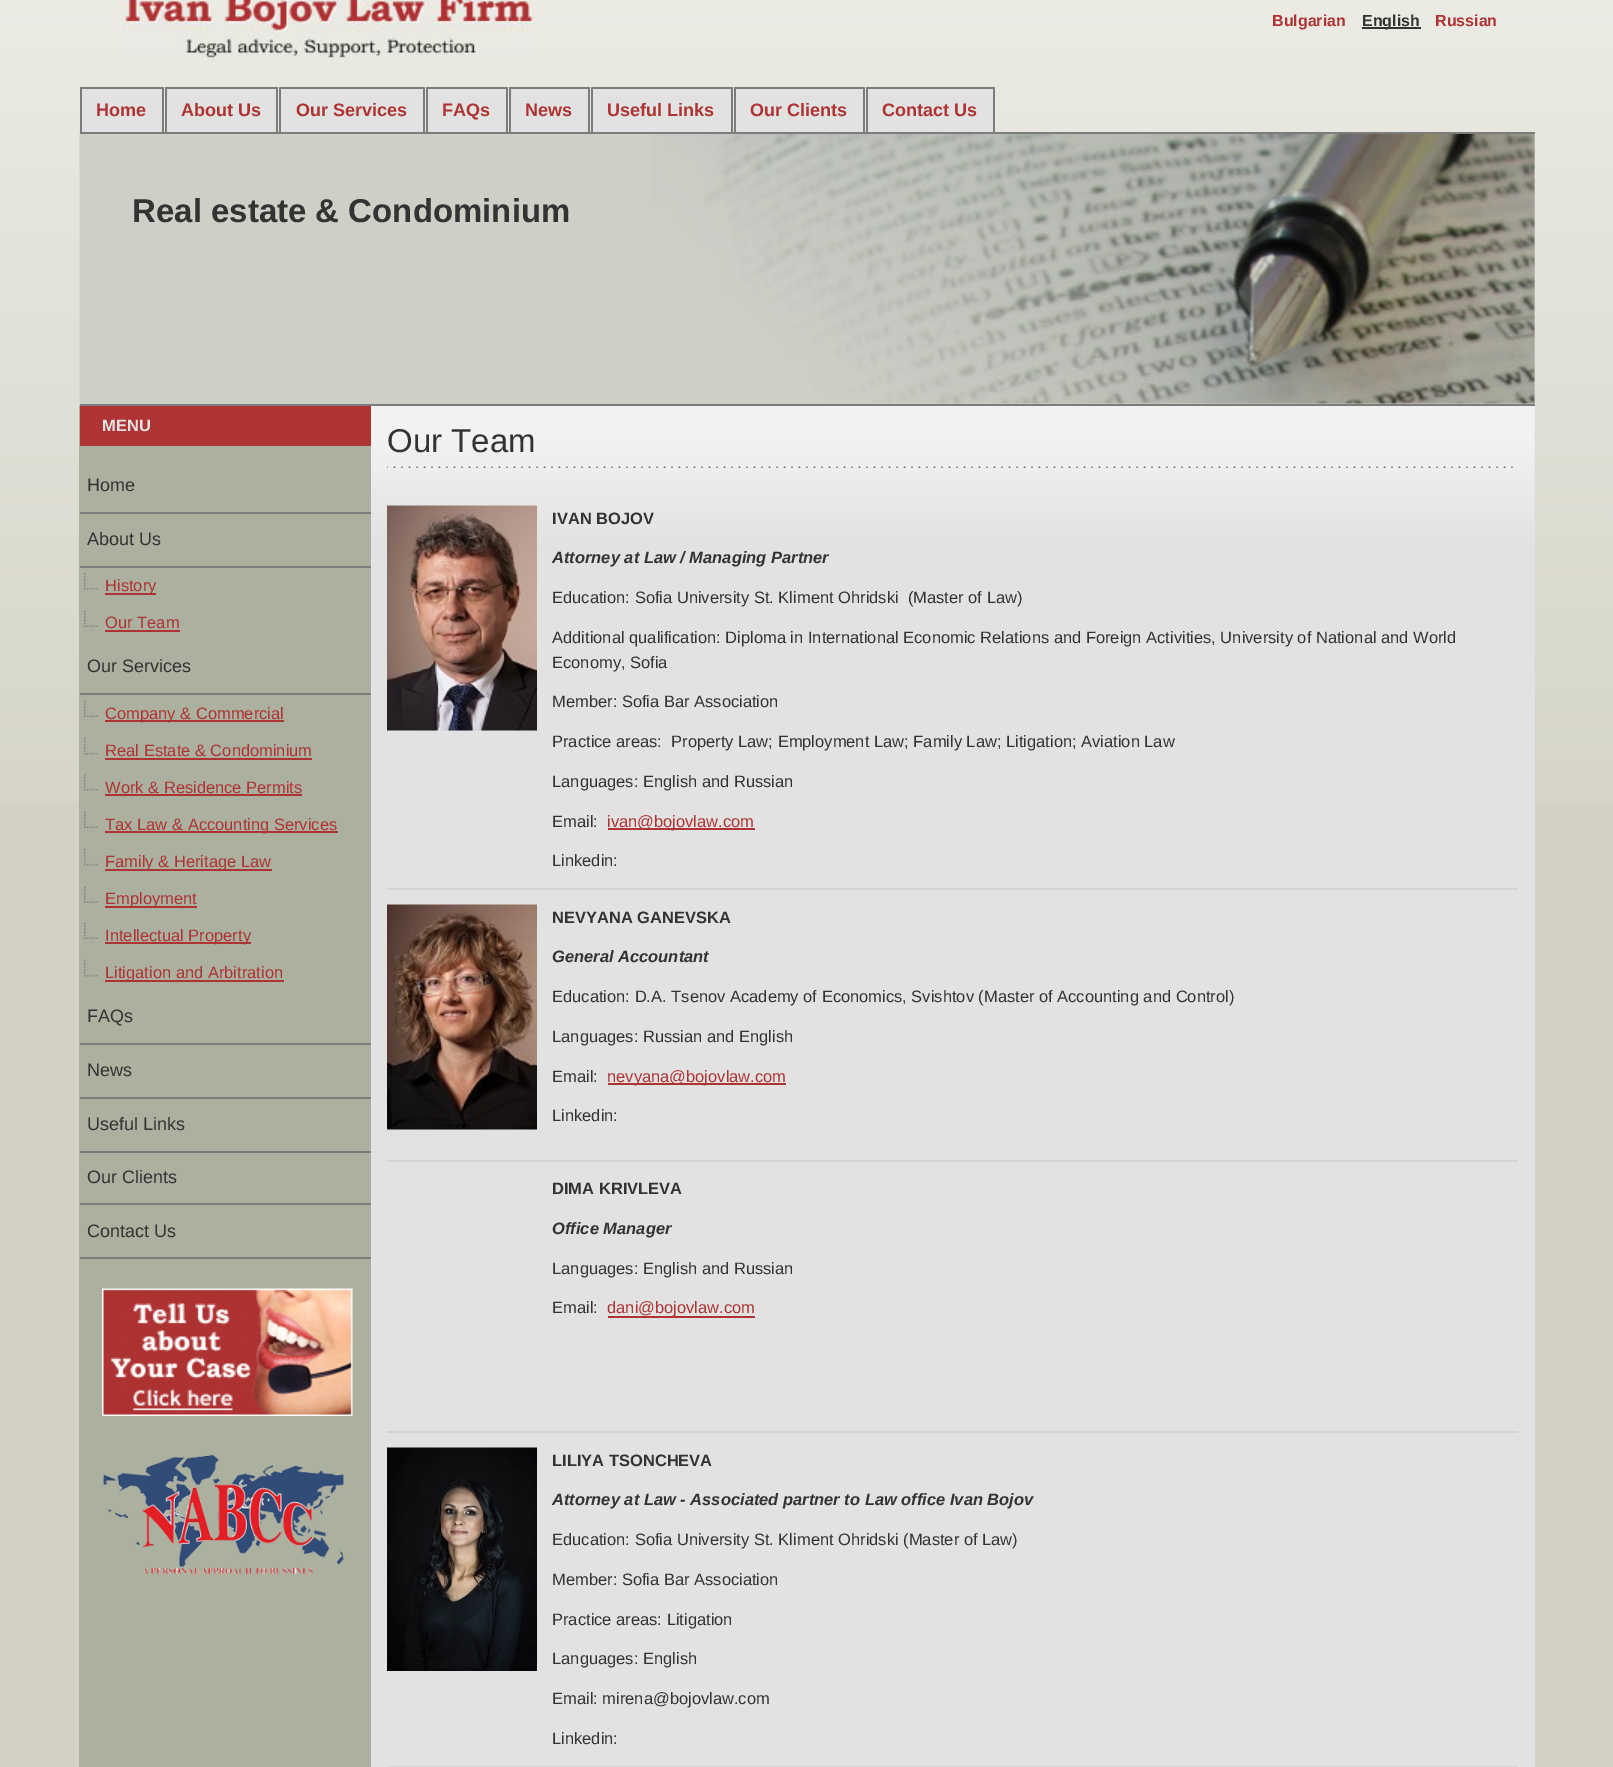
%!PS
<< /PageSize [1613 1767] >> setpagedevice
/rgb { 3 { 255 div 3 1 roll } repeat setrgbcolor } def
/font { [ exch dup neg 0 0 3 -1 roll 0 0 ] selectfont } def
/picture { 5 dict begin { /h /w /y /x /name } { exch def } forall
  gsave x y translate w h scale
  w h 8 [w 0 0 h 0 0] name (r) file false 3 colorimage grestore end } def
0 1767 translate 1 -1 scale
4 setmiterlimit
210 209 195 rgb
0 0 1613 1767 rectfill
(img/1.rgb) 0 0 1613 804 picture
205 208 199 rgb
80 134 1455 270 rectfill
(img/4.rgb) 79 133 1456 271 picture
124 124 124 rgb
80 132 1455 2 rectfill
(img/2.rgb) 539 0 1 58 picture
(img/3.rgb) 117 0 422 61 picture
[
  [1362 27 59 2 51 51 51]
  [82 89 80 43 226 226 226]
  [80 87 84 2 124 124 124]
  [162 87 2 45 124 124 124]
  [80 87 2 45 124 124 124]
  [167 89 109 43 226 226 226]
  [165 87 113 2 124 124 124]
  [276 87 2 45 124 124 124]
  [165 87 2 45 124 124 124]
  [281 89 142 43 226 226 226]
  [279 87 146 2 124 124 124]
  [423 87 2 45 124 124 124]
  [279 87 2 45 124 124 124]
  [428 89 78 43 226 226 226]
  [426 87 81 2 124 124 124]
  [506 87 2 45 124 124 124]
  [426 87 2 45 124 124 124]
  [511 89 77 43 226 226 226]
  [509 87 81 2 124 124 124]
  [588 87 2 45 124 124 124]
  [509 87 2 45 124 124 124]
  [593 89 138 43 226 226 226]
  [591 87 141 2 124 124 124]
  [731 87 2 45 124 124 124]
  [591 87 2 45 124 124 124]
  [736 89 127 43 226 226 226]
  [734 87 130 2 124 124 124]
  [863 87 2 45 124 124 124]
  [734 87 2 45 124 124 124]
  [868 89 125 43 226 226 226]
  [866 87 129 2 124 124 124]
  [993 87 2 45 124 124 124]
  [866 87 2 45 124 124 124]
  [79 405 292 1362 172 176 159]
  [80 404 1455 2 124 124 124]
  [371 406 1164 1361 226 226 226]
] { aload pop rgb rectfill } forall
(img/5.rgb) 371 406 1164 266 picture
[
  [80 406 291 40 174 51 51]
  [80 512 291 2 124 124 124]
  [80 566 291 2 124 124 124]
] { aload pop rgb rectfill } forall
(img/6.rgb) 84 572 14 18 picture
174 51 51 rgb
105 593 51 2 rectfill
(img/7.rgb) 84 610 14 17 picture
105 630 75 2 rectfill
124 124 124 rgb
80 693 291 2 rectfill
(img/7.rgb) 84 700 14 17 picture
174 51 51 rgb
105 720 179 2 rectfill
(img/6.rgb) 84 737 14 18 picture
105 758 207 2 rectfill
(img/6.rgb) 84 773 14 18 picture
105 794 197 2 rectfill
(img/7.rgb) 84 811 14 17 picture
105 831 233 2 rectfill
(img/6.rgb) 84 848 14 18 picture
105 869 167 2 rectfill
(img/7.rgb) 84 886 14 17 picture
105 906 92 2 rectfill
(img/7.rgb) 84 922 14 17 picture
105 942 146 2 rectfill
(img/6.rgb) 84 959 14 18 picture
[
  [105 980 179 2 174 51 51]
  [80 1043 291 2 124 124 124]
  [80 1097 291 2 124 124 124]
  [80 1151 291 2 124 124 124]
  [80 1203 291 2 124 124 124]
  [80 1257 291 2 124 124 124]
] { aload pop rgb rectfill } forall
(img/8.rgb) 102 1288 251 128 picture
(img/9.rgb) 102 1454 243 121 picture
(img/10.rgb) 387 466 1126 2 picture
211 211 211 rgb
387 888 1131 2 rectfill
(img/11.rgb) 387 505 150 226 picture
174 51 51 rgb
608 828 147 2 rectfill
211 211 211 rgb
387 1160 1131 2 rectfill
(img/12.rgb) 387 904 150 226 picture
[
  [608 1083 178 2 174 51 51]
  [387 1431 1131 2 211 211 211]
  [608 1316 147 2 174 51 51]
  [387 1766 1131 1 211 211 211]
] { aload pop rgb rectfill } forall
(img/13.rgb) 387 1447 150 224 picture
/LiberationSans-Bold 16 font
174 51 51 rgb
1272 26 moveto (Bulgarian) show
51 51 51 rgb
1362 26 moveto (English) show
174 51 51 rgb
1435 26 moveto (Russian) show
/LiberationSans-Bold 18 font
[
  [(Home) 96 116]
  [(About Us) 181 116]
  [(Our Services) 296 116]
  [(FAQs) 442 116]
  [(News) 525 116]
  [(Useful Links) 607 116]
  [(Our Clients) 750 116]
  [(Contact Us) 882 116]
] { aload pop moveto show } forall
/LiberationSans-Bold 33 font
51 51 51 rgb
132 222 moveto (Real estate & Condominium) show
/LiberationSans-Bold 16.5 font
226 226 226 rgb
102 431 moveto (MENU) show
/LiberationSans-Regular 18 font
51 51 51 rgb
87 491 moveto (Home) show
87 545 moveto (About Us) show
/LiberationSans-Regular 16.5 font
174 51 51 rgb
105 591 moveto (History) show
105 628 moveto (Our Team) show
/LiberationSans-Regular 18 font
51 51 51 rgb
87 672 moveto (Our Services) show
/LiberationSans-Regular 16.5 font
174 51 51 rgb
[
  [(Company & Commercial) 105 719]
  [(Real Estate & Condominium) 105 756]
  [(Work & Residence Permits) 105 793]
  [(Tax Law & Accounting Services) 105 830]
  [(Family & Heritage Law) 105 867]
  [(Employment) 105 904]
  [(Intellectual Property) 105 941]
  [(Litigation and Arbitration) 105 978]
] { aload pop moveto show } forall
/LiberationSans-Regular 18 font
51 51 51 rgb
[
  [(FAQs) 87 1022]
  [(News) 87 1076]
  [(Useful Links) 87 1130]
  [(Our Clients) 87 1183]
  [(Contact Us) 87 1237]
] { aload pop moveto show } forall
/LiberationSans-Regular 33 font
387 452 moveto (Our Team) show
/LiberationSans-Bold 16.5 font
552 524 moveto (IVAN BOJOV) show
/LiberationSans-BoldItalic 16.5 font
552 563 moveto (Attorney at Law / Managing Partner) show
/LiberationSans-Regular 16.5 font
[
  [(Education: Sofia University St. Kliment Ohridski  \(Master of Law\)) 552 603]
  [(Additional qualification: Diploma in International Economic Relations and Foreign Activities, University of National and World) 552 643]
  [(Economy, Sofia) 552 668]
  [(Member: Sofia Bar Association) 552 707]
  [(Practice areas:  Property Law; Employment Law; Family Law; Litigation; Aviation Law) 552 747]
  [(Languages: English and Russian) 552 787]
  [(Email:) 552 827]
] { aload pop moveto show } forall
174 51 51 rgb
607 827 moveto (ivan@bojovlaw.com) show
51 51 51 rgb
552 866 moveto (Linkedin:) show
/LiberationSans-Bold 16.5 font
552 923 moveto (NEVYANA GANEVSKA) show
/LiberationSans-BoldItalic 16.5 font
552 962 moveto (General Accountant) show
/LiberationSans-Regular 16.5 font
[
  [(Education: D.A. Tsenov Academy of Economics, Svishtov \(Master of Accounting and Control\)) 552 1002]
  [(Languages: Russian and English) 552 1042]
  [(Email:) 552 1082]
] { aload pop moveto show } forall
174 51 51 rgb
607 1082 moveto (nevyana@bojovlaw.com) show
51 51 51 rgb
552 1121 moveto (Linkedin:) show
/LiberationSans-Bold 16.5 font
552 1194 moveto (DIMA KRIVLEVA) show
/LiberationSans-BoldItalic 16.5 font
552 1234 moveto (Office Manager) show
/LiberationSans-Regular 16.5 font
552 1274 moveto (Languages: English and Russian) show
552 1313 moveto (Email:) show
174 51 51 rgb
607 1313 moveto (dani@bojovlaw.com) show
/LiberationSans-Bold 16.5 font
51 51 51 rgb
552 1466 moveto (LILIYA TSONCHEVA) show
/LiberationSans-BoldItalic 16.5 font
552 1505 moveto (Attorney at Law - Associated partner to Law office Ivan Bojov) show
/LiberationSans-Regular 16.5 font
[
  [(Education: Sofia University St. Kliment Ohridski \(Master of Law\)) 552 1545]
  [(Member: Sofia Bar Association) 552 1585]
  [(Practice areas: Litigation) 552 1625]
  [(Languages: English) 552 1664]
  [(Email: mirena@bojovlaw.com) 552 1704]
  [(Linkedin:) 552 1744]
] { aload pop moveto show } forall
showpage
